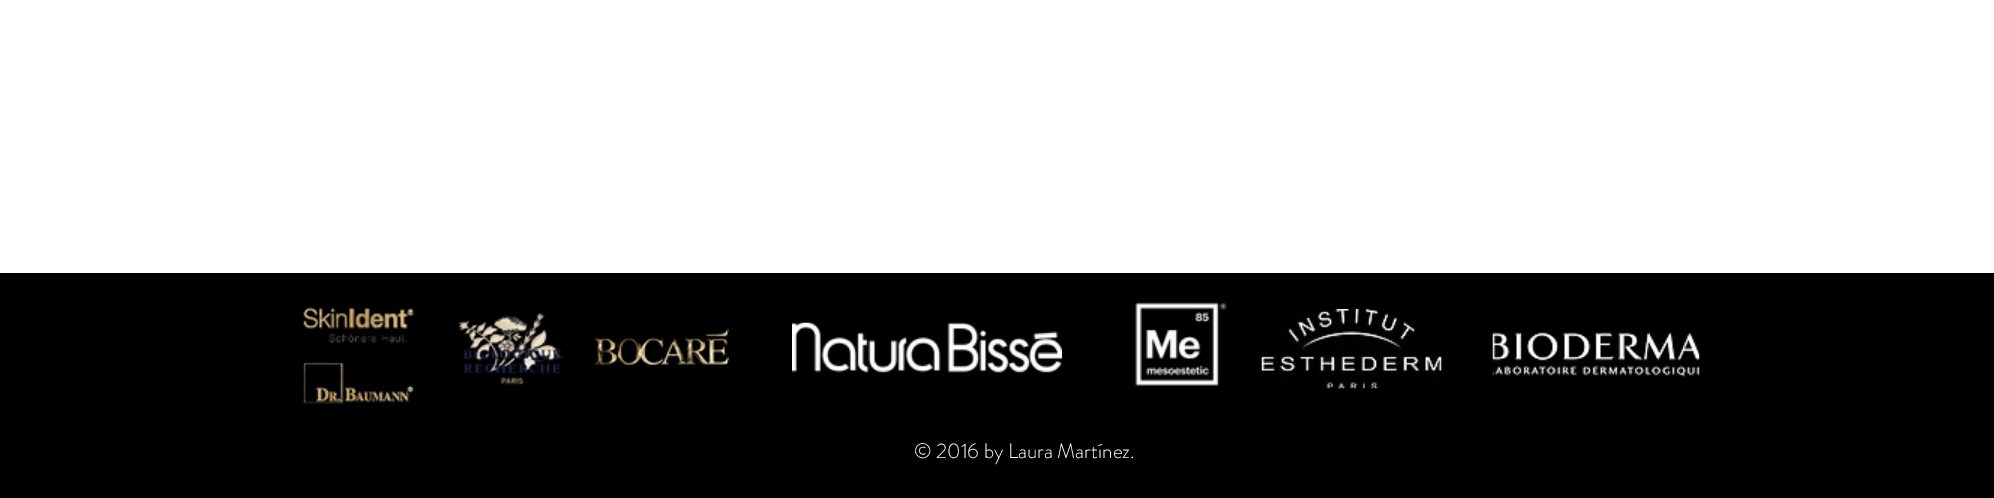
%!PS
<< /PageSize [1994 498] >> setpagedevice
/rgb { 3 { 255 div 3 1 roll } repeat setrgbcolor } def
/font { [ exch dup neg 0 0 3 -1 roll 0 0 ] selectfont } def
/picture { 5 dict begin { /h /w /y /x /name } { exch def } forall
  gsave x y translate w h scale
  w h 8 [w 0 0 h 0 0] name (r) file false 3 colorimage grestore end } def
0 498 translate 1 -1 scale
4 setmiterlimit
255 255 255 rgb
0 0 1994 498 rectfill
0 0 0 rgb
0 273 1994 225 rectfill
(img/1.rgb) 303 307 111 97 picture
(img/2.rgb) 458 313 105 72 picture
(img/3.rgb) 594 328 135 38 picture
(img/4.rgb) 792 322 270 51 picture
(img/5.rgb) 1135 302 93 84 picture
(img/6.rgb) 1261 309 181 80 picture
(img/7.rgb) 1492 332 208 46 picture
/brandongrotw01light-Light 21 font
255 255 255 rgb
914 458 moveto (© 2016 by Laura Martínez.) show
showpage
